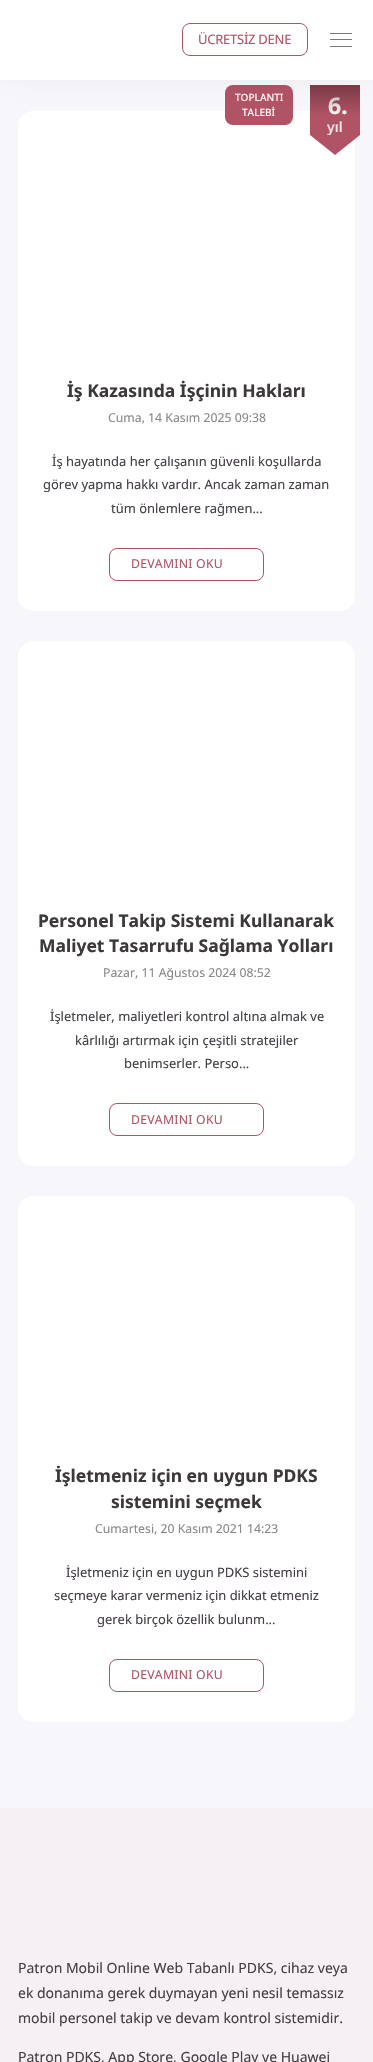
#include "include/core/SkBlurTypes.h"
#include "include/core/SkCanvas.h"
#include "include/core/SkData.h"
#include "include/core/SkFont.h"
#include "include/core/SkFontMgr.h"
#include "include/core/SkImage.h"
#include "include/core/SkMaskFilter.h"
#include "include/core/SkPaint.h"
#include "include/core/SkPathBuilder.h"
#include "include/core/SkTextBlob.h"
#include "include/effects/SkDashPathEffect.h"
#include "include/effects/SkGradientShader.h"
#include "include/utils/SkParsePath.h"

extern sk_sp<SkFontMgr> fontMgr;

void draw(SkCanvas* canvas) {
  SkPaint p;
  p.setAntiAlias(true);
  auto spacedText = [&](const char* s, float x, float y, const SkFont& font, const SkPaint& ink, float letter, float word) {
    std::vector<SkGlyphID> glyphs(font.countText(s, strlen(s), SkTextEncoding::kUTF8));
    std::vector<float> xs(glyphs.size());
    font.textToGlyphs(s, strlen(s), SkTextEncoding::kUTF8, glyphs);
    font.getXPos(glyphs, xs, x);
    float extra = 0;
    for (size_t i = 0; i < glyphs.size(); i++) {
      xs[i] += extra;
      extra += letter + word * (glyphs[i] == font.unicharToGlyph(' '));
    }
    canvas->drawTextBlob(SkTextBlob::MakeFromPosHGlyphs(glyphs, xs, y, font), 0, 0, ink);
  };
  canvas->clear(SkColorSetRGB(247, 247, 251));
  p.setColor(SK_ColorWHITE);
  canvas->drawRoundRect(SkRect::MakeLTRB(18, 111, 355, 611), 15, 15, p);
  p.setColor(SkColorSetRGB(176, 83, 100));
  canvas->drawRoundRect(SkRect::MakeLTRB(225, 85, 293, 125), 8, 8, p);
  canvas->drawRect(SkRect::MakeLTRB(310, 85, 360, 135), p);
  p.setStyle(SkPaint::kStroke_Style);
  p.setStrokeWidth(1);
  canvas->drawRoundRect(SkRect::MakeLTRB(109.5f, 548.5f, 263.5f, 580.5f), 7.5f, 7.5f, p);
  p.setStyle(SkPaint::kFill_Style);
  p.setColor(SK_ColorWHITE);
  canvas->drawRoundRect(SkRect::MakeLTRB(18, 641, 355, 1166), 15, 15, p);
  p.setStyle(SkPaint::kStroke_Style);
  p.setColor(SkColorSetRGB(176, 83, 100));
  canvas->drawRoundRect(SkRect::MakeLTRB(109.5f, 1103.5f, 263.5f, 1135.5f), 7.5f, 7.5f, p);
  p.setStyle(SkPaint::kFill_Style);
  p.setColor(SK_ColorWHITE);
  canvas->drawRoundRect(SkRect::MakeLTRB(18, 1196, 355, 1722), 15, 15, p);
  p.setStyle(SkPaint::kStroke_Style);
  p.setColor(SkColorSetRGB(176, 83, 100));
  canvas->drawRoundRect(SkRect::MakeLTRB(109.5f, 1659.5f, 263.5f, 1691.5f), 7.5f, 7.5f, p);
  p.setStyle(SkPaint::kFill_Style);
  {
    const SkColor colors[] = {SkColorSetRGB(247, 243, 247), SkColorSetRGB(246, 239, 244)};
    const float stops[] = {0, 1};
    const SkPoint ends[] = {{187, 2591}, {187, 1808}};
    p.setShader(SkGradientShader::MakeLinear(ends, colors, stops, 2, SkTileMode::kClamp));
    p.setAlpha(255);
  }
  canvas->drawRect(SkRect::MakeLTRB(0, 1808, 373, 2062), p);
  SkFont font1(fontMgr->matchFamilyStyle("Noto Sans", SkFontStyle(500, SkFontStyle::kNormal_Width, SkFontStyle::kUpright_Slant)), 10);
  font1.setSubpixel(true);
  p.setShader(nullptr);
  p.setColor(SkColorSetRGB(250, 243, 245));
  canvas->drawString("TOPLANTI", 235, 101, font1, p);
  canvas->drawString("TALEBİ", 242, 116, font1, p);
  SkFont font2(fontMgr->matchFamilyStyle("Noto Sans", SkFontStyle::Bold()), 23);
  font2.setSubpixel(true);
  canvas->drawString("6", 328, 114, font2, p);
  SkFont font3(fontMgr->matchFamilyStyle("Noto Sans", SkFontStyle::Bold()), 24);
  font3.setSubpixel(true);
  canvas->drawString(".", 341, 114, font3, p);
  {
    const SkColor colors[] = {SkColorSetARGB(77, 0, 0, 0), SkColorSetARGB(0, 0, 0, 0)};
    const float stops[] = {0, 1};
    const SkPoint ends[] = {{335, 85}, {335, 115}};
    p.setShader(SkGradientShader::MakeLinear(ends, colors, stops, 2, SkTileMode::kClamp));
    p.setAlpha(255);
  }
  canvas->drawRect(SkRect::MakeLTRB(310, 85, 360, 113), p);
  p.setShader(nullptr);
  p.setColor(SkColorSetARGB(33, 0, 0, 0));
  p.setMaskFilter(SkMaskFilter::MakeBlur(kNormal_SkBlurStyle, 12.5f));
  canvas->drawRect(SkRect::MakeLTRB(10, 10, 363, 70), p);
  p.setMaskFilter(nullptr);
  p.setColor(SK_ColorWHITE);
  canvas->drawRect(SkRect::MakeLTRB(0, 0, 373, 80), p);
  p.setColor(SkColorSetRGB(121, 121, 121));
  canvas->drawRect(SkRect::MakeLTRB(330, 46, 352, 47), p);
  canvas->drawRect(SkRect::MakeLTRB(330, 39, 352, 40), p);
  canvas->drawRect(SkRect::MakeLTRB(330, 33, 352, 34), p);
  p.setStyle(SkPaint::kStroke_Style);
  p.setColor(SkColorSetRGB(176, 83, 100));
  canvas->drawRoundRect(SkRect::MakeLTRB(182.5f, 23.5f, 307.5f, 55.5f), 7.5f, 7.5f, p);
  SkFont font4(fontMgr->matchFamilyStyle("Noto Sans", SkFontStyle::Normal()), 13);
  font4.setSubpixel(true);
  p.setStyle(SkPaint::kFill_Style);
  spacedText("ÜCRETSİZ DENE", 198, 44, font4, p, -0.25f, 0);
  SkFont font5(fontMgr->matchFamilyStyle("Noto Sans", SkFontStyle(600, SkFontStyle::kNormal_Width, SkFontStyle::kUpright_Slant)), 14);
  font5.setSubpixel(true);
  p.setColor(SkColorSetRGB(240, 221, 225));
  canvas->drawString("yıl", 327, 132, font5, p);
  p.setColor(SkColorSetRGB(176, 83, 100));
  canvas->drawPath(SkPathBuilder().moveTo(310, 135).lineTo(360, 135).lineTo(335, 155).close().detach(), p);
  SkFont font6(fontMgr->matchFamilyStyle("Noto Sans", SkFontStyle::Bold()), 17.5f);
  font6.setSubpixel(true);
  p.setColor(SkColorSetRGB(61, 57, 58));
  canvas->drawString("İş Kazasında İşçinin Hakları", 67, 397, font6, p);
  SkFont font7(fontMgr->matchFamilyStyle("Noto Sans", SkFontStyle::Normal()), 12.25f);
  font7.setSubpixel(true);
  p.setColor(SkColorSetRGB(136, 136, 136));
  canvas->drawString("Cuma, 14 Kasım 2025 09:38", 108, 422, font7, p);
  SkFont font8(fontMgr->matchFamilyStyle("Noto Sans", SkFontStyle::Normal()), 12.95f);
  font8.setSubpixel(true);
  p.setColor(SkColorSetRGB(68, 63, 70));
  canvas->drawString("İş hayatında her çalışanın güvenli koşullarda", 52, 466, font8, p);
  canvas->drawString("görev yapma hakkı vardır. Ancak zaman zaman", 43, 489, font8, p);
  canvas->drawString("tüm önlemlere rağmen...", 111, 513, font8, p);
  p.setColor(SkColorSetRGB(176, 83, 100));
  spacedText("DEVAMINI OKU", 131, 568, font7, p, 0.25f, 0);
  p.setColor(SkColorSetRGB(61, 57, 58));
  canvas->drawString("Personel Takip Sistemi Kullanarak", 38, 927, font6, p);
  canvas->drawString("Maliyet Tasarrufu Sağlama Yolları", 39, 952, font6, p);
  p.setColor(SkColorSetRGB(136, 136, 136));
  canvas->drawString("Pazar, 11 Ağustos 2024 08:52", 103, 977, font7, p);
  p.setColor(SkColorSetRGB(68, 63, 70));
  canvas->drawString("İşletmeler, maliyetleri kontrol altına almak ve", 50, 1021, font8, p);
  canvas->drawString("kârlılığı artırmak için çeşitli stratejiler", 75, 1045, font8, p);
  canvas->drawString("benimserler. Perso...", 124, 1068, font8, p);
  p.setColor(SkColorSetRGB(176, 83, 100));
  spacedText("DEVAMINI OKU", 131, 1124, font7, p, 0.25f, 0);
  p.setColor(SkColorSetRGB(61, 57, 58));
  canvas->drawString("İşletmeniz için en uygun PDKS", 55, 1482, font6, p);
  canvas->drawString("sistemini seçmek", 111, 1508, font6, p);
  p.setColor(SkColorSetRGB(136, 136, 136));
  canvas->drawString("Cumartesi, 20 Kasım 2021 14:23", 95, 1533, font7, p);
  p.setColor(SkColorSetRGB(68, 63, 70));
  canvas->drawString("İşletmeniz için en uygun PDKS sistemini", 66, 1577, font8, p);
  canvas->drawString("seçmeye karar vermeniz için dikkat etmeniz", 54, 1600, font8, p);
  canvas->drawString("gerek birçok özellik bulunm...", 97, 1624, font8, p);
  p.setColor(SkColorSetRGB(176, 83, 100));
  spacedText("DEVAMINI OKU", 131, 1679, font7, p, 0.25f, 0);
  SkFont font9(fontMgr->matchFamilyStyle("Noto Sans", SkFontStyle::Normal()), 14);
  font9.setSubpixel(true);
  p.setColor(SkColorSetRGB(68, 63, 70));
  canvas->drawString("Patron Mobil Online Web Tabanlı PDKS, cihaz veya", 18, 1973, font9, p);
  canvas->drawString("ek donanıma gerek duymayan yeni nesil temassız", 18, 1998, font9, p);
  canvas->drawString("mobil personel takip ve devam kontrol sistemidir.", 18, 2023, font9, p);
  canvas->drawString("Patron PDKS, App Store, Google Play ve Huawei", 18, 2062, font9, p);
}
